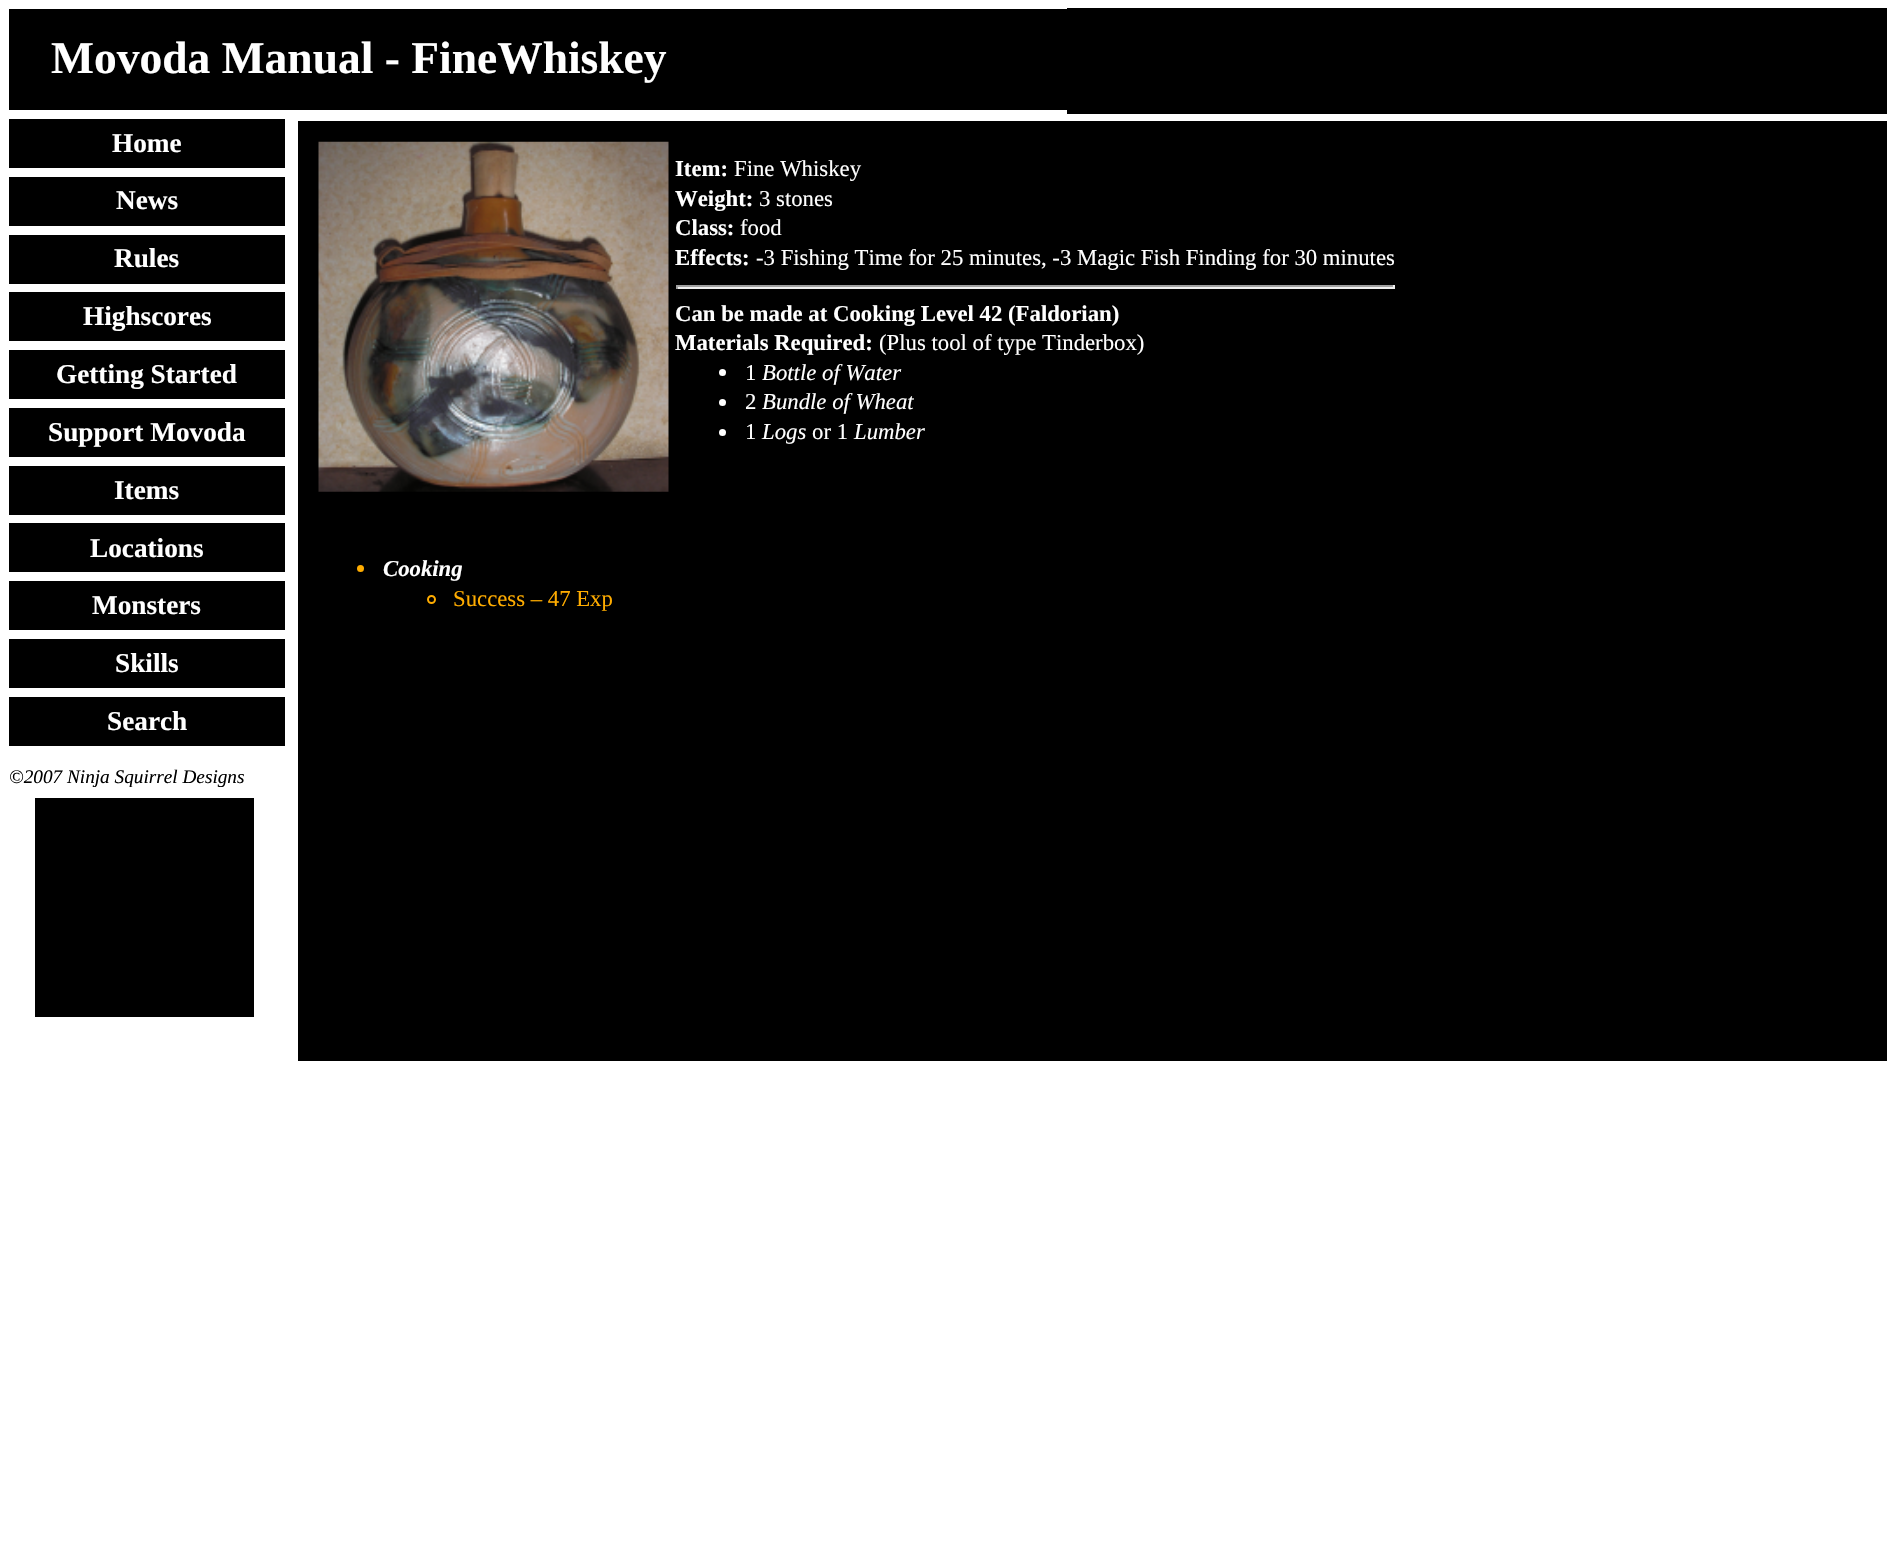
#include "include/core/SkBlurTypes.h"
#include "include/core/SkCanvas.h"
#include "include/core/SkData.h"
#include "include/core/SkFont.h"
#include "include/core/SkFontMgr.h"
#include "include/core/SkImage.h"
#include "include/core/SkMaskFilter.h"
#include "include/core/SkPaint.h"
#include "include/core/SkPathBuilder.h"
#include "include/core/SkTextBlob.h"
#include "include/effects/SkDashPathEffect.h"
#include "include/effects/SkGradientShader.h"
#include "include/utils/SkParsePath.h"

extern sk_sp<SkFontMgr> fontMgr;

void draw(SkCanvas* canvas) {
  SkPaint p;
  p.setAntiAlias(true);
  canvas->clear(SK_ColorWHITE);
  p.setColor(SK_ColorBLACK);
  canvas->drawRect(SkRect::MakeLTRB(9, 9, 1067, 110), p);
  canvas->drawRect(SkRect::MakeLTRB(1067, 8, 1887, 114), p);
  canvas->drawRect(SkRect::MakeLTRB(9, 119, 285, 168), p);
  canvas->drawRect(SkRect::MakeLTRB(9, 177, 285, 226), p);
  canvas->drawRect(SkRect::MakeLTRB(298, 121, 1887, 1061), p);
  canvas->drawImageRect(SkImages::DeferredFromEncodedData(SkData::MakeFromFileName("images/1.png")), SkRect::MakeLTRB(318, 141, 669, 492), SkSamplingOptions());
  p.setColor(SkColorSetRGB(159, 159, 159));
  canvas->drawRect(SkRect::MakeLTRB(676, 285, 1395, 287), p);
  p.setColor(SkColorSetRGB(238, 238, 238));
  canvas->drawRect(SkRect::MakeLTRB(1393, 285, 1395, 289), p);
  canvas->drawRect(SkRect::MakeLTRB(676, 287, 1395, 289), p);
  p.setColor(SkColorSetRGB(159, 159, 159));
  canvas->drawRect(SkRect::MakeLTRB(676, 285, 678, 289), p);
  p.setColor(SK_ColorWHITE);
  canvas->drawCircle(722.5f, 372.5f, 3.5f, p);
  canvas->drawCircle(722.5f, 402.5f, 3.5f, p);
  canvas->drawCircle(722.5f, 432.5f, 3.5f, p);
  p.setColor(SkColorSetRGB(255, 172, 0));
  canvas->drawCircle(360.5f, 568.5f, 3.5f, p);
  p.setStyle(SkPaint::kStroke_Style);
  p.setStrokeWidth(2);
  canvas->drawCircle(431.5f, 599.5f, 3.5f, p);
  p.setStyle(SkPaint::kFill_Style);
  p.setColor(SK_ColorBLACK);
  canvas->drawRect(SkRect::MakeLTRB(9, 235, 285, 284), p);
  canvas->drawRect(SkRect::MakeLTRB(9, 292, 285, 341), p);
  canvas->drawRect(SkRect::MakeLTRB(9, 350, 285, 399), p);
  canvas->drawRect(SkRect::MakeLTRB(9, 408, 285, 457), p);
  canvas->drawRect(SkRect::MakeLTRB(9, 466, 285, 515), p);
  canvas->drawRect(SkRect::MakeLTRB(9, 523, 285, 572), p);
  canvas->drawRect(SkRect::MakeLTRB(9, 581, 285, 630), p);
  canvas->drawRect(SkRect::MakeLTRB(9, 639, 285, 688), p);
  canvas->drawRect(SkRect::MakeLTRB(9, 697, 285, 746), p);
  canvas->drawRect(SkRect::MakeLTRB(35, 798, 254, 1017), p);
  SkFont font1(fontMgr->matchFamilyStyle("Liberation Serif", SkFontStyle::Bold()), 45.5f);
  font1.setSubpixel(true);
  p.setColor(SK_ColorWHITE);
  canvas->drawString("Movoda Manual - FineWhiskey", 51, 73, font1, p);
  SkFont font2(fontMgr->matchFamilyStyle("Liberation Serif", SkFontStyle::Bold()), 27.25f);
  font2.setSubpixel(true);
  canvas->drawString("Home", 112, 152, font2, p);
  canvas->drawString("News", 116, 209, font2, p);
  SkFont font3(fontMgr->matchFamilyStyle("Liberation Serif", SkFontStyle::Bold()), 22.75f);
  font3.setSubpixel(true);
  canvas->drawString("Item:", 675, 176, font3, p);
  SkFont font4(fontMgr->matchFamilyStyle("Liberation Serif", SkFontStyle::Normal()), 22.75f);
  font4.setSubpixel(true);
  canvas->drawString("Fine Whiskey", 734, 176, font4, p);
  canvas->drawString("Weight:", 675, 206, font3, p);
  canvas->drawString("3 stones", 759, 206, font4, p);
  canvas->drawString("Class:", 675, 235, font3, p);
  canvas->drawString("food", 740, 235, font4, p);
  canvas->drawString("Effects:", 675, 265, font3, p);
  canvas->drawString("-3 Fishing Time for 25 minutes, -3 Magic Fish Finding for 30 minutes", 756, 265, font4, p);
  canvas->drawString("Can be made at Cooking Level 42 (Faldorian)", 675, 321, font3, p);
  canvas->drawString("Materials Required:", 675, 350, font3, p);
  canvas->drawString("(Plus tool of type Tinderbox)", 879, 350, font4, p);
  canvas->drawString("1", 745, 380, font4, p);
  SkFont font5(fontMgr->matchFamilyStyle("Liberation Serif", SkFontStyle::Italic()), 22.75f);
  font5.setSubpixel(true);
  canvas->drawString("Bottle of Water", 762, 380, font5, p);
  canvas->drawString("2", 745, 409, font4, p);
  canvas->drawString("Bundle of Wheat", 762, 409, font5, p);
  canvas->drawString("1", 745, 439, font4, p);
  canvas->drawString("Logs", 762, 439, font5, p);
  canvas->drawString("or 1", 812, 439, font4, p);
  canvas->drawString("Lumber", 854, 439, font5, p);
  SkFont font6(fontMgr->matchFamilyStyle("Liberation Serif", SkFontStyle::BoldItalic()), 22.75f);
  font6.setSubpixel(true);
  canvas->drawString("Cooking", 383, 576, font6, p);
  p.setColor(SkColorSetRGB(255, 172, 0));
  canvas->drawString("Success – 47 Exp", 453, 606, font4, p);
  p.setColor(SK_ColorWHITE);
  canvas->drawString("Rules", 114, 267, font2, p);
  canvas->drawString("Highscores", 83, 325, font2, p);
  canvas->drawString("Getting Started", 56, 383, font2, p);
  canvas->drawString("Support Movoda", 48, 441, font2, p);
  canvas->drawString("Items", 114, 499, font2, p);
  canvas->drawString("Locations", 90, 557, font2, p);
  canvas->drawString("Monsters", 92, 614, font2, p);
  canvas->drawString("Skills", 115, 672, font2, p);
  canvas->drawString("Search", 107, 730, font2, p);
  SkFont font7(fontMgr->matchFamilyStyle("Liberation Serif", SkFontStyle::Italic()), 19.25f);
  font7.setSubpixel(true);
  p.setColor(SK_ColorBLACK);
  canvas->drawString("©2007 Ninja Squirrel Designs", 9, 783, font7, p);
}
